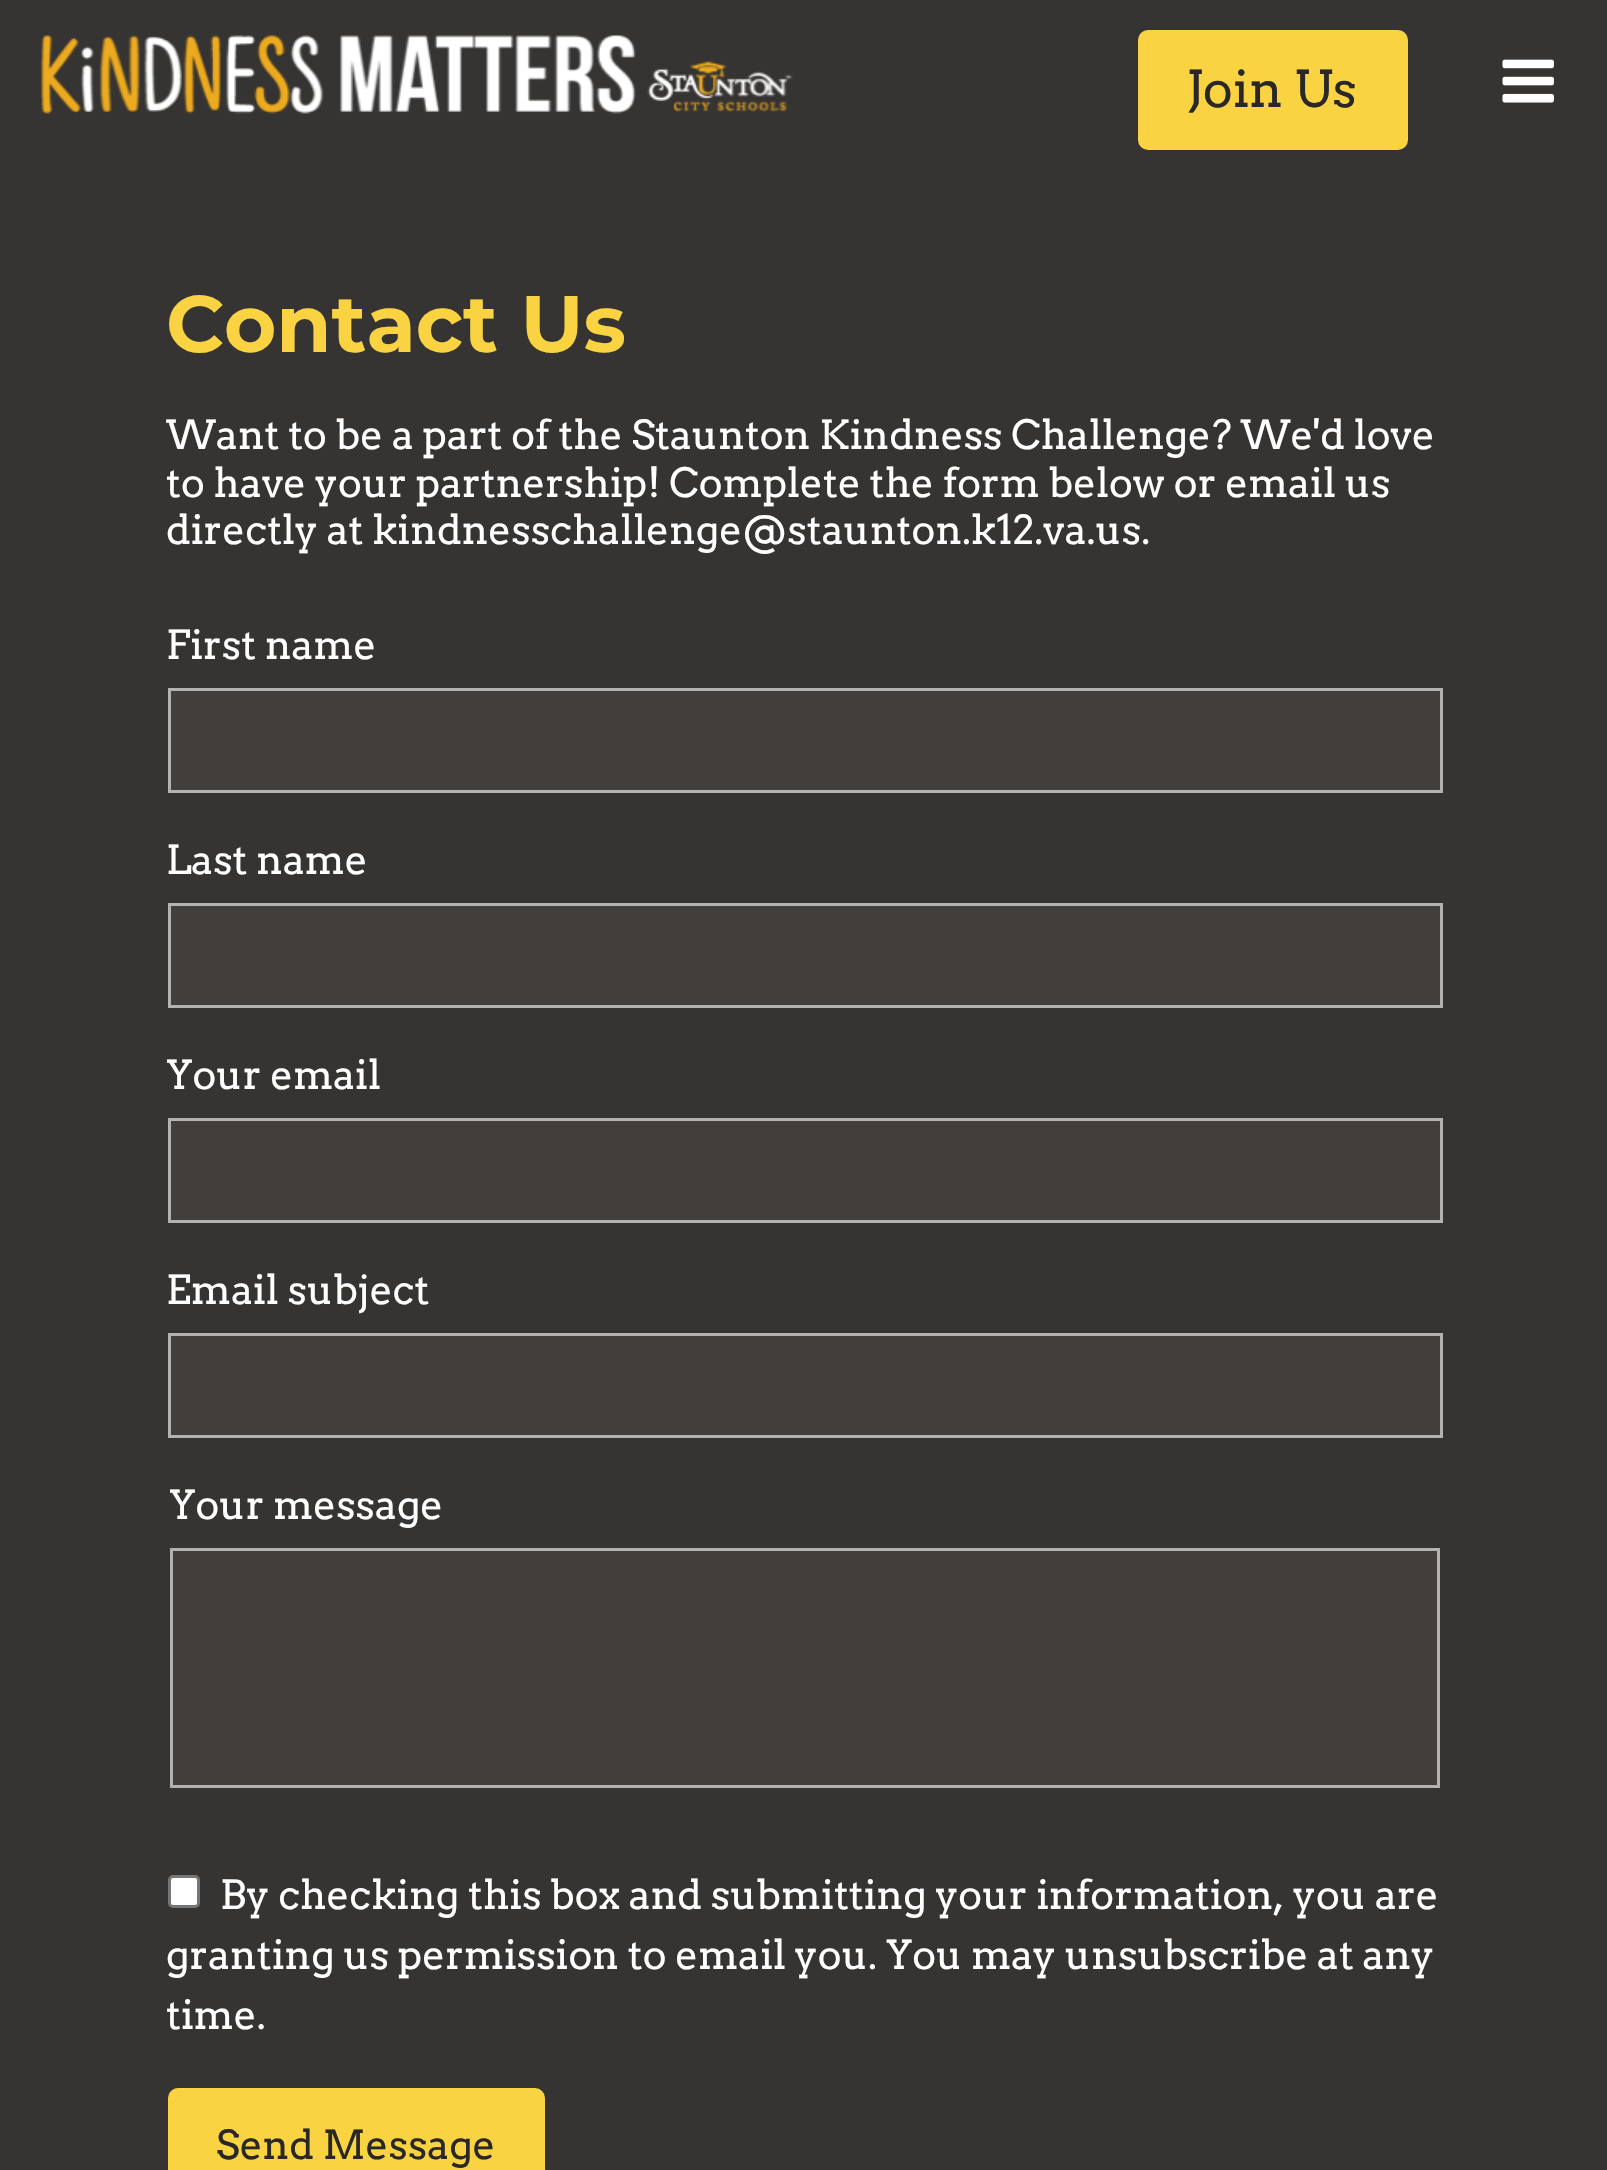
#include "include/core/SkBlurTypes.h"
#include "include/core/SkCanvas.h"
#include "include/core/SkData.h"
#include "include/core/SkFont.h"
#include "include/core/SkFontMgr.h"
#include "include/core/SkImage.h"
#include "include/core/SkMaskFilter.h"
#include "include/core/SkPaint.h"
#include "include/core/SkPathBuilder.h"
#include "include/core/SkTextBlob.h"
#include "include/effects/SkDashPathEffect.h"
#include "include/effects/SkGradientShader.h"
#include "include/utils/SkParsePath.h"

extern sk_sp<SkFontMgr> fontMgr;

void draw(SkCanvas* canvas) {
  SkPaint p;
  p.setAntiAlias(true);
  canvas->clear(SkColorSetRGB(54, 52, 50));
  canvas->drawImageRect(SkImages::DeferredFromEncodedData(SkData::MakeFromFileName("images/1.png")), SkRect::MakeLTRB(40, 34, 793, 114), SkSamplingOptions());
  p.setColor(SkColorSetRGB(249, 211, 66));
  canvas->drawRoundRect(SkRect::MakeLTRB(1138, 30, 1408, 150), 10, 10, p);
  canvas->drawImageRect(SkImages::DeferredFromEncodedData(SkData::MakeFromFileName("images/2.png")), SkRect::MakeLTRB(1502, 59, 1554, 103), SkSamplingOptions());
  p.setColor(SkColorSetRGB(65, 62, 60));
  canvas->drawRect(SkRect::MakeLTRB(169.5f, 689.5f, 1441.5f, 791.5f), p);
  p.setStyle(SkPaint::kStroke_Style);
  p.setStrokeWidth(3);
  p.setColor(SkColorSetRGB(179, 178, 177));
  canvas->drawRect(SkRect::MakeLTRB(169.5f, 689.5f, 1441.5f, 791.5f), p);
  p.setStyle(SkPaint::kFill_Style);
  p.setColor(SkColorSetRGB(65, 62, 60));
  canvas->drawRect(SkRect::MakeLTRB(169.5f, 904.5f, 1441.5f, 1006.5f), p);
  p.setStyle(SkPaint::kStroke_Style);
  p.setColor(SkColorSetRGB(179, 178, 177));
  canvas->drawRect(SkRect::MakeLTRB(169.5f, 904.5f, 1441.5f, 1006.5f), p);
  p.setStyle(SkPaint::kFill_Style);
  p.setColor(SkColorSetRGB(65, 62, 60));
  canvas->drawRect(SkRect::MakeLTRB(169.5f, 1119.5f, 1441.5f, 1221.5f), p);
  p.setStyle(SkPaint::kStroke_Style);
  p.setColor(SkColorSetRGB(179, 178, 177));
  canvas->drawRect(SkRect::MakeLTRB(169.5f, 1119.5f, 1441.5f, 1221.5f), p);
  p.setStyle(SkPaint::kFill_Style);
  p.setColor(SkColorSetRGB(65, 62, 60));
  canvas->drawRect(SkRect::MakeLTRB(169.5f, 1334.5f, 1441.5f, 1436.5f), p);
  p.setStyle(SkPaint::kStroke_Style);
  p.setColor(SkColorSetRGB(179, 178, 177));
  canvas->drawRect(SkRect::MakeLTRB(169.5f, 1334.5f, 1441.5f, 1436.5f), p);
  p.setStyle(SkPaint::kFill_Style);
  p.setColor(SkColorSetRGB(65, 62, 60));
  canvas->drawRect(SkRect::MakeLTRB(171.5f, 1549.5f, 1438.5f, 1786.5f), p);
  p.setStyle(SkPaint::kStroke_Style);
  p.setColor(SkColorSetRGB(179, 178, 177));
  canvas->drawRect(SkRect::MakeLTRB(171.5f, 1549.5f, 1438.5f, 1786.5f), p);
  p.setStyle(SkPaint::kFill_Style);
  p.setColor(SK_ColorWHITE);
  canvas->drawRoundRect(SkRect::MakeLTRB(169.5f, 1876.5f, 198.5f, 1906.5f), 3.5f, 3.5f, p);
  p.setStyle(SkPaint::kStroke_Style);
  p.setColor(SkColorSetRGB(118, 118, 118));
  canvas->drawRoundRect(SkRect::MakeLTRB(169.5f, 1876.5f, 198.5f, 1906.5f), 3.5f, 3.5f, p);
  p.setStyle(SkPaint::kFill_Style);
  p.setColor(SkColorSetRGB(249, 211, 66));
  canvas->drawRoundRect(SkRect::MakeLTRB(168, 2088, 545, 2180), 10, 10, p);
  SkFont font1(fontMgr->matchFamilyStyle("Arvo", SkFontStyle::Normal()), 50.5f);
  font1.setSubpixel(true);
  p.setColor(SkColorSetRGB(41, 40, 38));
  canvas->drawString("Join Us", 1186, 107, font1, p);
  SkFont font2(fontMgr->matchFamilyStyle("Montserrat", SkFontStyle::Bold()), 80);
  font2.setSubpixel(true);
  p.setColor(SkColorSetRGB(249, 211, 66));
  canvas->drawString("Contact Us", 166, 352, font2, p);
  SkFont font3(fontMgr->matchFamilyStyle("Arvo", SkFontStyle::Normal()), 40);
  font3.setSubpixel(true);
  p.setColor(SK_ColorWHITE);
  canvas->drawString("Want to be a part of the Staunton Kindness Challenge? We'd love", 166, 449, font3, p);
  canvas->drawString("to have your partnership! Complete the form below or email us", 166, 497, font3, p);
  canvas->drawString("directly at kindnesschallenge@staunton.k12.va.us.", 166, 544, font3, p);
  canvas->drawString("First name", 166, 659, font3, p);
  canvas->drawString("Last name", 166, 874, font3, p);
  canvas->drawString("Your email", 166, 1089, font3, p);
  canvas->drawString("Email subject", 166, 1304, font3, p);
  canvas->drawString("Your message", 169, 1519, font3, p);
  canvas->drawString("By checking this box and submitting your information, you are", 220, 1909, font3, p);
  canvas->drawString("granting us permission to email you. You may unsubscribe at any", 166, 1969, font3, p);
  canvas->drawString("time.", 166, 2029, font3, p);
  p.setColor(SkColorSetRGB(41, 40, 38));
  canvas->drawString("Send Message", 216, 2159, font3, p);
}
